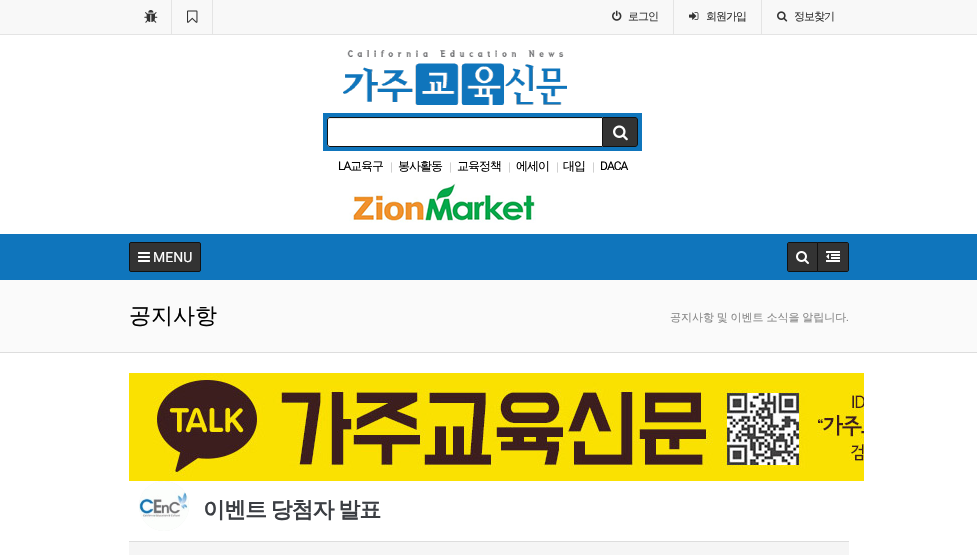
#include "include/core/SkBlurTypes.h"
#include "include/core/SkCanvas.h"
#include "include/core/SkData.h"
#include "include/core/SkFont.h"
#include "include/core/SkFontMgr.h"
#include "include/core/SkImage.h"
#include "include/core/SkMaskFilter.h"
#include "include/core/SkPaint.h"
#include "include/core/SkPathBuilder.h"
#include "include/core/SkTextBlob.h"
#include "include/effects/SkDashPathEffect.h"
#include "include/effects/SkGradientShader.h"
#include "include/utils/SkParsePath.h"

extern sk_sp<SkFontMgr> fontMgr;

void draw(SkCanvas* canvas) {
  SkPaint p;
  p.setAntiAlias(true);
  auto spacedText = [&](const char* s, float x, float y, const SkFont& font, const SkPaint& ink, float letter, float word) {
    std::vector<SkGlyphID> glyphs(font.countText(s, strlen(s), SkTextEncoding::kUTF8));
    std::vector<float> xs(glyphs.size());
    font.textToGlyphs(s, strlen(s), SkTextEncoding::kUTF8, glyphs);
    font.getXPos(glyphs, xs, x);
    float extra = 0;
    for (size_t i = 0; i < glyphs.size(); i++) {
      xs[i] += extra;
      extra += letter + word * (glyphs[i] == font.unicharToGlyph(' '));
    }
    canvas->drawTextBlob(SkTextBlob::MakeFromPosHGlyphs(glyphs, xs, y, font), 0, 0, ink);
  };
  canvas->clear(SK_ColorWHITE);
  p.setColor(SkColorSetRGB(248, 248, 248));
  canvas->drawRect(SkRect::MakeLTRB(0, 0, 977, 34), p);
  p.setColor(SkColorSetRGB(228, 228, 228));
  canvas->drawRect(SkRect::MakeLTRB(0, 34, 977, 35), p);
  canvas->drawRect(SkRect::MakeLTRB(171, 0, 172, 34), p);
  canvas->drawImageRect(SkImages::DeferredFromEncodedData(SkData::MakeFromFileName("images/1.png")), SkRect::MakeLTRB(144, 10, 158, 23), SkSamplingOptions());
  canvas->drawRect(SkRect::MakeLTRB(212, 0, 213, 34), p);
  canvas->drawImageRect(SkImages::DeferredFromEncodedData(SkData::MakeFromFileName("images/2.png")), SkRect::MakeLTRB(187, 10, 198, 23), SkSamplingOptions());
  canvas->drawRect(SkRect::MakeLTRB(673, 0, 674, 34), p);
  canvas->drawImageRect(SkImages::DeferredFromEncodedData(SkData::MakeFromFileName("images/3.png")), SkRect::MakeLTRB(612, 10, 622, 21), SkSamplingOptions());
  canvas->drawRect(SkRect::MakeLTRB(761, 0, 762, 34), p);
  canvas->drawImageRect(SkImages::DeferredFromEncodedData(SkData::MakeFromFileName("images/4.png")), SkRect::MakeLTRB(689, 12, 699, 20), SkSamplingOptions());
  canvas->drawImageRect(SkImages::DeferredFromEncodedData(SkData::MakeFromFileName("images/5.png")), SkRect::MakeLTRB(777, 11, 788, 22), SkSamplingOptions());
  canvas->drawImageRect(SkImages::DeferredFromEncodedData(SkData::MakeFromFileName("images/6.png")), SkRect::MakeLTRB(343, 50, 567, 105), SkSamplingOptions());
  p.setColor(SkColorSetRGB(15, 117, 188));
  canvas->drawRect(SkRect::MakeLTRB(323, 113, 642, 151), p);
  p.setColor(SkColorSetRGB(51, 51, 51));
  canvas->drawPath(SkPathBuilder().moveTo(602.5f, 117.5f).lineTo(635, 117.5f).cubicTo(636.5f, 117.5f, 637.5f, 118.5f, 637.5f, 120).lineTo(637.5f, 144).cubicTo(637.5f, 145.5f, 636.5f, 146.5f, 635, 146.5f).lineTo(602.5f, 146.5f).close().detach(), p);
  p.setStyle(SkPaint::kStroke_Style);
  p.setStrokeWidth(1);
  p.setColor(SkColorSetRGB(17, 17, 17));
  canvas->drawPath(SkPathBuilder().moveTo(602.5f, 117.5f).lineTo(635, 117.5f).cubicTo(636.5f, 117.5f, 637.5f, 118.5f, 637.5f, 120).lineTo(637.5f, 144).cubicTo(637.5f, 145.5f, 636.5f, 146.5f, 635, 146.5f).lineTo(602.5f, 146.5f).close().detach(), p);
  p.setStyle(SkPaint::kFill_Style);
  p.setColor(SK_ColorWHITE);
  canvas->drawPath(SkPathBuilder().moveTo(330, 117).lineTo(603, 117).lineTo(603, 147).lineTo(330, 147).cubicTo(328.5f, 147, 327, 145.5f, 327, 144).lineTo(327, 120).cubicTo(327, 118.5f, 328.5f, 117, 330, 117).close().detach(), p);
  p.setColor(SkColorSetRGB(236, 236, 236));
  canvas->drawPath(SkPathBuilder().moveTo(330, 119).lineTo(602, 119).lineTo(602, 118).lineTo(330, 118).cubicTo(328, 118, 328, 120, 328, 121).cubicTo(328, 120, 329, 119, 330, 119).close().detach(), p);
  p.setStyle(SkPaint::kStroke_Style);
  p.setColor(SkColorSetRGB(17, 17, 17));
  canvas->drawPath(SkPathBuilder().moveTo(330, 117.5f).lineTo(602.5f, 117.5f).lineTo(602.5f, 146.5f).lineTo(330, 146.5f).cubicTo(328.5f, 146.5f, 327.5f, 145.5f, 327.5f, 144).lineTo(327.5f, 120).cubicTo(327.5f, 118.5f, 328.5f, 117.5f, 330, 117.5f).close().detach(), p);
  canvas->drawImageRect(SkImages::DeferredFromEncodedData(SkData::MakeFromFileName("images/7.png")), SkRect::MakeLTRB(613, 125, 628, 141), SkSamplingOptions());
  canvas->drawImageRect(SkImages::DeferredFromEncodedData(SkData::MakeFromFileName("images/8.png")), SkRect::MakeLTRB(349, 182, 536, 223), SkSamplingOptions());
  p.setStyle(SkPaint::kFill_Style);
  p.setColor(SkColorSetRGB(15, 117, 188));
  canvas->drawRect(SkRect::MakeLTRB(0, 234, 977, 280), p);
  p.setColor(SkColorSetRGB(51, 51, 51));
  canvas->drawRoundRect(SkRect::MakeLTRB(129.5f, 242.5f, 200.5f, 271.5f), 1.5f, 1.5f, p);
  p.setStyle(SkPaint::kStroke_Style);
  p.setColor(SkColorSetRGB(17, 17, 17));
  canvas->drawRoundRect(SkRect::MakeLTRB(129.5f, 242.5f, 200.5f, 271.5f), 1.5f, 1.5f, p);
  canvas->drawImageRect(SkImages::DeferredFromEncodedData(SkData::MakeFromFileName("images/9.png")), SkRect::MakeLTRB(138, 252, 150, 262), SkSamplingOptions());
  p.setStyle(SkPaint::kFill_Style);
  p.setColor(SkColorSetRGB(51, 51, 51));
  canvas->drawPath(SkPathBuilder().moveTo(789, 242.5f).lineTo(817.5f, 242.5f).lineTo(817.5f, 271.5f).lineTo(789, 271.5f).cubicTo(788, 271.5f, 787.5f, 271, 787.5f, 270).lineTo(787.5f, 244).cubicTo(787.5f, 243, 788, 242.5f, 789, 242.5f).close().detach(), p);
  p.setStyle(SkPaint::kStroke_Style);
  p.setColor(SkColorSetRGB(17, 17, 17));
  canvas->drawPath(SkPathBuilder().moveTo(789, 242.5f).lineTo(817.5f, 242.5f).lineTo(817.5f, 271.5f).lineTo(789, 271.5f).cubicTo(788, 271.5f, 787.5f, 271, 787.5f, 270).lineTo(787.5f, 244).cubicTo(787.5f, 243, 788, 242.5f, 789, 242.5f).close().detach(), p);
  canvas->drawImageRect(SkImages::DeferredFromEncodedData(SkData::MakeFromFileName("images/10.png")), SkRect::MakeLTRB(796, 251, 809, 264), SkSamplingOptions());
  p.setStyle(SkPaint::kFill_Style);
  p.setColor(SkColorSetRGB(51, 51, 51));
  canvas->drawPath(SkPathBuilder().moveTo(817.5f, 242.5f).lineTo(847, 242.5f).cubicTo(848, 242.5f, 848.5f, 243, 848.5f, 244).lineTo(848.5f, 270).cubicTo(848.5f, 271, 848, 271.5f, 847, 271.5f).lineTo(817.5f, 271.5f).close().detach(), p);
  p.setStyle(SkPaint::kStroke_Style);
  p.setColor(SkColorSetRGB(17, 17, 17));
  canvas->drawPath(SkPathBuilder().moveTo(817.5f, 242.5f).lineTo(847, 242.5f).cubicTo(848, 242.5f, 848.5f, 243, 848.5f, 244).lineTo(848.5f, 270).cubicTo(848.5f, 271, 848, 271.5f, 847, 271.5f).lineTo(817.5f, 271.5f).close().detach(), p);
  canvas->drawImageRect(SkImages::DeferredFromEncodedData(SkData::MakeFromFileName("images/11.png")), SkRect::MakeLTRB(826, 251, 840, 262), SkSamplingOptions());
  p.setStyle(SkPaint::kFill_Style);
  p.setColor(SkColorSetRGB(250, 250, 250));
  canvas->drawRect(SkRect::MakeLTRB(0, 280, 977, 352), p);
  p.setColor(SkColorSetRGB(221, 221, 221));
  canvas->drawRect(SkRect::MakeLTRB(0, 352, 977, 353), p);
  canvas->drawImageRect(SkImages::DeferredFromEncodedData(SkData::MakeFromFileName("images/12.png")), SkRect::MakeLTRB(129, 373, 864, 481), SkSamplingOptions());
  p.setColor(SkColorSetRGB(240, 240, 240));
  canvas->drawCircle(164, 506, 25, p);
  canvas->drawImageRect(SkImages::DeferredFromEncodedData(SkData::MakeFromFileName("images/13.png")), SkRect::MakeLTRB(139, 481, 189, 531), SkSamplingOptions());
  p.setColor(SkColorSetRGB(221, 221, 221));
  canvas->drawRect(SkRect::MakeLTRB(129, 541, 849, 542), p);
  p.setColor(SkColorSetRGB(245, 245, 245));
  canvas->drawRect(SkRect::MakeLTRB(129, 542, 849, 555), p);
  SkFont font1(fontMgr->matchFamilyStyle("WenQuanYi Zen Hei", SkFontStyle(500, SkFontStyle::kNormal_Width, SkFontStyle::kUpright_Slant)), 11);
  font1.setSubpixel(true);
  p.setColor(SkColorSetRGB(51, 51, 51));
  spacedText("로그인", 628, 20, font1, p, -1, 0);
  spacedText("회원가입", 706, 20, font1, p, -1, 0);
  spacedText("정보찾기", 794, 20, font1, p, -1, 0);
  SkFont font2(fontMgr->matchFamilyStyle("Roboto", SkFontStyle::Normal()), 12);
  font2.setSubpixel(true);
  p.setColor(SK_ColorBLACK);
  spacedText("LA", 338, 170, font2, p, -1, 0);
  SkFont font3(fontMgr->matchFamilyStyle("WenQuanYi Zen Hei", SkFontStyle(500, SkFontStyle::kNormal_Width, SkFontStyle::kUpright_Slant)), 12);
  font3.setSubpixel(true);
  spacedText("교육구", 350, 170, font3, p, -1, 0);
  p.setColor(SkColorSetRGB(204, 204, 204));
  spacedText("|", 390, 171, font2, p, -1, 0);
  p.setColor(SK_ColorBLACK);
  spacedText("봉사활동", 398, 170, font3, p, -1, 0);
  p.setColor(SkColorSetRGB(204, 204, 204));
  spacedText("|", 449, 171, font2, p, -1, 0);
  p.setColor(SK_ColorBLACK);
  spacedText("교육정책", 457, 170, font3, p, -1, 0);
  p.setColor(SkColorSetRGB(204, 204, 204));
  spacedText("|", 508, 171, font2, p, -1, 0);
  p.setColor(SK_ColorBLACK);
  spacedText("에세이", 516, 170, font3, p, -1, 0);
  p.setColor(SkColorSetRGB(204, 204, 204));
  spacedText("|", 556, 171, font2, p, -1, 0);
  p.setColor(SK_ColorBLACK);
  spacedText("대입", 563, 170, font3, p, -1, 0);
  p.setColor(SkColorSetRGB(204, 204, 204));
  spacedText("|", 592, 171, font2, p, -1, 0);
  p.setColor(SK_ColorBLACK);
  spacedText("DACA", 600, 170, font2, p, -1, 0);
  SkFont font4(fontMgr->matchFamilyStyle("Roboto", SkFontStyle::Normal()), 14);
  font4.setSubpixel(true);
  p.setColor(SK_ColorWHITE);
  canvas->drawString("MENU", 153, 262, font4, p);
  SkFont font5(fontMgr->matchFamilyStyle("WenQuanYi Zen Hei", SkFontStyle(500, SkFontStyle::kNormal_Width, SkFontStyle::kUpright_Slant)), 22);
  font5.setSubpixel(true);
  p.setColor(SK_ColorBLACK);
  canvas->drawString("공지사항", 129, 323, font5, p);
  p.setColor(SkColorSetRGB(136, 136, 136));
  spacedText("공지사항 및 이벤트 소식을 알립니다", 670, 321, font1, p, 0, -0.5f);
  SkFont font6(fontMgr->matchFamilyStyle("Roboto", SkFontStyle::Normal()), 11);
  font6.setSubpixel(true);
  canvas->drawString(".", 846, 321, font6, p);
  SkFont font7(fontMgr->matchFamilyStyle("WenQuanYi Zen Hei", SkFontStyle::Bold()), 22);
  font7.setSubpixel(true);
  p.setColor(SkColorSetRGB(59, 62, 67));
  spacedText("이벤트 당첨자 발표", 203, 517, font7, p, -1, -1);
}
